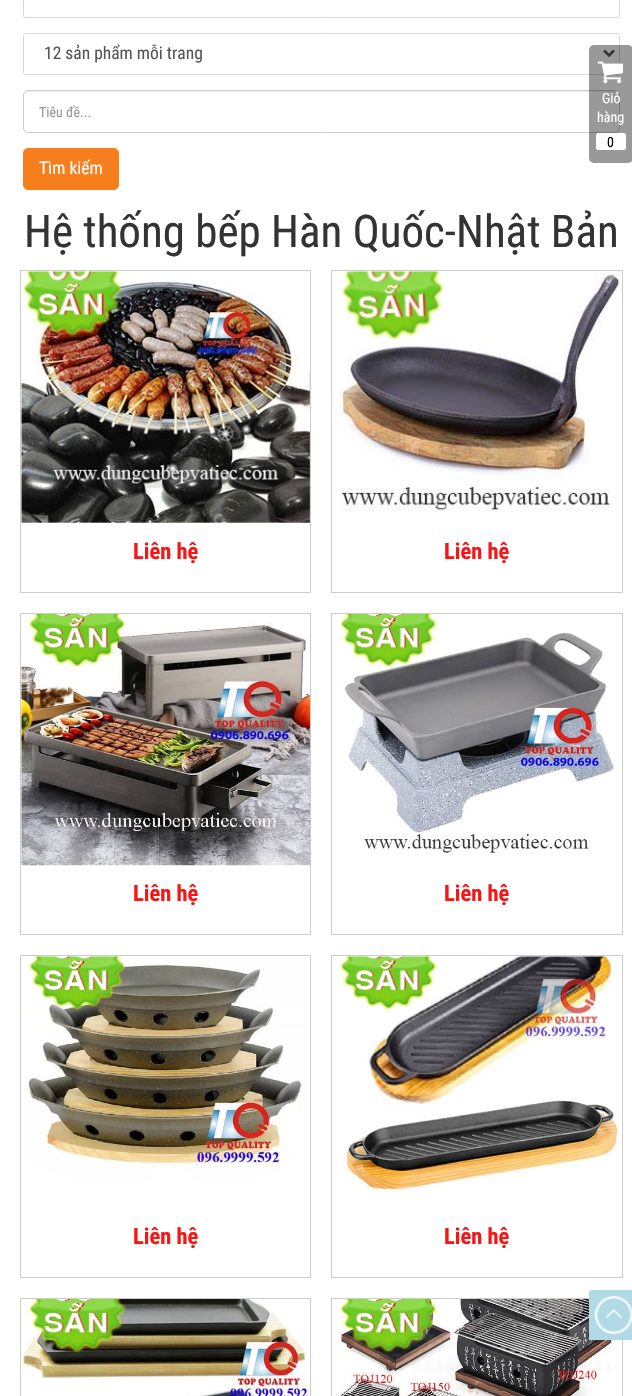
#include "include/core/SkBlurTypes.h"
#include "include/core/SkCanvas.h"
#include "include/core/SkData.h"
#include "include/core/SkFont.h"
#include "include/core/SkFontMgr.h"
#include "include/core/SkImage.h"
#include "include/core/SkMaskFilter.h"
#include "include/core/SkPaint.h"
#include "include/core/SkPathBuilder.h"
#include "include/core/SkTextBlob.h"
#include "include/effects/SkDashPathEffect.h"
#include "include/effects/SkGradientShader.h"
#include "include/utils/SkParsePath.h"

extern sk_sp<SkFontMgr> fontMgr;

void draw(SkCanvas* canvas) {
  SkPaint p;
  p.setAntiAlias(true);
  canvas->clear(SK_ColorWHITE);
  p.setStyle(SkPaint::kStroke_Style);
  p.setStrokeWidth(1);
  p.setColor(SkColorSetRGB(215, 215, 215));
  canvas->drawRoundRect(SkRect::MakeLTRB(23.5f, -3.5f, 619.5f, 17.5f), 2, 2, p);
  canvas->drawRoundRect(SkRect::MakeLTRB(23.5f, 33.5f, 619.5f, 74.5f), 2, 2, p);
  p.setStrokeWidth(2.5f);
  p.setColor(SkColorSetRGB(85, 85, 85));
  canvas->drawPath(SkPathBuilder().moveTo(604, 50.5f).lineTo(609, 55.5f).lineTo(614, 50.5f).detach(), p);
  p.setStyle(SkPaint::kFill_Style);
  p.setColor(SkColorSetRGB(236, 236, 236));
  canvas->drawPath(SkPathBuilder().moveTo(28, 92).lineTo(615, 92).cubicTo(617, 92, 619, 94, 619, 96).lineTo(619, 95).cubicTo(619, 93, 617, 91, 615, 91).lineTo(28, 91).cubicTo(26, 91, 24, 93, 24, 95).lineTo(24, 96).cubicTo(24, 94, 25, 92, 28, 92).close().detach(), p);
  p.setStyle(SkPaint::kStroke_Style);
  p.setStrokeWidth(1);
  p.setColor(SkColorSetRGB(204, 204, 204));
  canvas->drawRoundRect(SkRect::MakeLTRB(23.5f, 90.5f, 619.5f, 132.5f), 4.5f, 4.5f, p);
  p.setStyle(SkPaint::kFill_Style);
  p.setColor(SkColorSetRGB(246, 126, 28));
  canvas->drawRoundRect(SkRect::MakeLTRB(23.5f, 148.5f, 118.5f, 189.5f), 4.5f, 4.5f, p);
  p.setStyle(SkPaint::kStroke_Style);
  canvas->drawRoundRect(SkRect::MakeLTRB(23.5f, 148.5f, 118.5f, 189.5f), 4.5f, 4.5f, p);
  p.setColor(SkColorSetRGB(204, 204, 204));
  canvas->drawRect(SkRect::MakeLTRB(20.5f, 270.5f, 310.5f, 592.5f), p);
  canvas->drawImageRect(SkImages::DeferredFromEncodedData(SkData::MakeFromFileName("images/1.png")), SkRect::MakeLTRB(21, 271, 310, 523), SkSamplingOptions());
  canvas->drawRect(SkRect::MakeLTRB(331.5f, 270.5f, 622.5f, 592.5f), p);
  canvas->drawImageRect(SkImages::DeferredFromEncodedData(SkData::MakeFromFileName("images/2.png")), SkRect::MakeLTRB(333, 271, 621, 523), SkSamplingOptions());
  canvas->drawRect(SkRect::MakeLTRB(20.5f, 613.5f, 310.5f, 934.5f), p);
  canvas->drawImageRect(SkImages::DeferredFromEncodedData(SkData::MakeFromFileName("images/3.png")), SkRect::MakeLTRB(21, 614, 310, 866), SkSamplingOptions());
  canvas->drawRect(SkRect::MakeLTRB(331.5f, 613.5f, 622.5f, 934.5f), p);
  canvas->drawImageRect(SkImages::DeferredFromEncodedData(SkData::MakeFromFileName("images/4.png")), SkRect::MakeLTRB(338, 614, 614, 866), SkSamplingOptions());
  canvas->drawRect(SkRect::MakeLTRB(20.5f, 955.5f, 310.5f, 1277.5f), p);
  canvas->drawImageRect(SkImages::DeferredFromEncodedData(SkData::MakeFromFileName("images/5.png")), SkRect::MakeLTRB(26, 956, 303, 1208), SkSamplingOptions());
  canvas->drawRect(SkRect::MakeLTRB(331.5f, 955.5f, 622.5f, 1277.5f), p);
  canvas->drawImageRect(SkImages::DeferredFromEncodedData(SkData::MakeFromFileName("images/6.png")), SkRect::MakeLTRB(338, 956, 619, 1208), SkSamplingOptions());
  canvas->drawRect(SkRect::MakeLTRB(20.5f, 1298.5f, 310.5f, 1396.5f), p);
  canvas->drawImageRect(SkImages::DeferredFromEncodedData(SkData::MakeFromFileName("images/7.png")), SkRect::MakeLTRB(21, 1299, 309, 1396), SkSamplingOptions());
  canvas->drawRect(SkRect::MakeLTRB(331.5f, 1298.5f, 622.5f, 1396.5f), p);
  canvas->drawImageRect(SkImages::DeferredFromEncodedData(SkData::MakeFromFileName("images/8.png")), SkRect::MakeLTRB(337, 1299, 616, 1396), SkSamplingOptions());
  p.setStyle(SkPaint::kFill_Style);
  p.setColor(SkColorSetARGB(102, 0, 0, 0));
  canvas->drawRoundRect(SkRect::MakeLTRB(589, 45, 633, 163), 5, 5, p);
  canvas->drawImageRect(SkImages::DeferredFromEncodedData(SkData::MakeFromFileName("images/9.png")), SkRect::MakeLTRB(597, 61, 623, 84), SkSamplingOptions());
  p.setColor(SK_ColorWHITE);
  canvas->drawRoundRect(SkRect::MakeLTRB(596, 133, 626, 150), 2.5f, 2.5f, p);
  p.setColor(SkColorSetRGB(177, 218, 230));
  canvas->drawPath(SkPathBuilder().moveTo(591.5f, 1290).lineTo(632.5f, 1290).cubicTo(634, 1290, 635, 1291, 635, 1292.5f).lineTo(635, 1340).lineTo(589, 1340).lineTo(589, 1292.5f).cubicTo(589, 1291, 590, 1290, 591.5f, 1290).close().detach(), p);
  canvas->drawImageRect(SkImages::DeferredFromEncodedData(SkData::MakeFromFileName("images/10.png")), SkRect::MakeLTRB(594, 1296, 632, 1334), SkSamplingOptions());
  SkFont font1(fontMgr->matchFamilyStyle("Roboto Condensed", SkFontStyle::Normal()), 17.5f);
  font1.setSubpixel(true);
  p.setColor(SkColorSetRGB(85, 85, 85));
  canvas->drawString("12 sản phẩm mỗi trang", 44, 59, font1, p);
  SkFont font2(fontMgr->matchFamilyStyle("Roboto Condensed", SkFontStyle::Normal()), 14);
  font2.setSubpixel(true);
  p.setColor(SkColorSetRGB(153, 153, 153));
  canvas->drawString("Tiêu đề...", 39, 117, font2, p);
  p.setColor(SK_ColorWHITE);
  canvas->drawString("Tìm kiếm", 39, 174, font1, p);
  SkFont font3(fontMgr->matchFamilyStyle("Roboto Condensed", SkFontStyle::Normal()), 45);
  font3.setSubpixel(true);
  p.setColor(SkColorSetRGB(51, 51, 51));
  canvas->drawString("Hệ thống bếp Hàn Quốc-Nhật Bản", 24, 247, font3, p);
  SkFont font4(fontMgr->matchFamilyStyle("Roboto Condensed", SkFontStyle::Bold()), 22.5f);
  font4.setSubpixel(true);
  p.setColor(SkColorSetRGB(247, 21, 21));
  canvas->drawString("Liên hệ", 133, 559, font4, p);
  canvas->drawString("Liên hệ", 444, 559, font4, p);
  canvas->drawString("Liên hệ", 133, 901, font4, p);
  canvas->drawString("Liên hệ", 444, 901, font4, p);
  canvas->drawString("Liên hệ", 133, 1244, font4, p);
  canvas->drawString("Liên hệ", 444, 1244, font4, p);
  p.setColor(SK_ColorWHITE);
  canvas->drawString("Giỏ", 602, 103, font2, p);
  canvas->drawString("hàng", 597, 122, font2, p);
  p.setColor(SK_ColorBLACK);
  canvas->drawString("0", 607, 147, font2, p);
}
